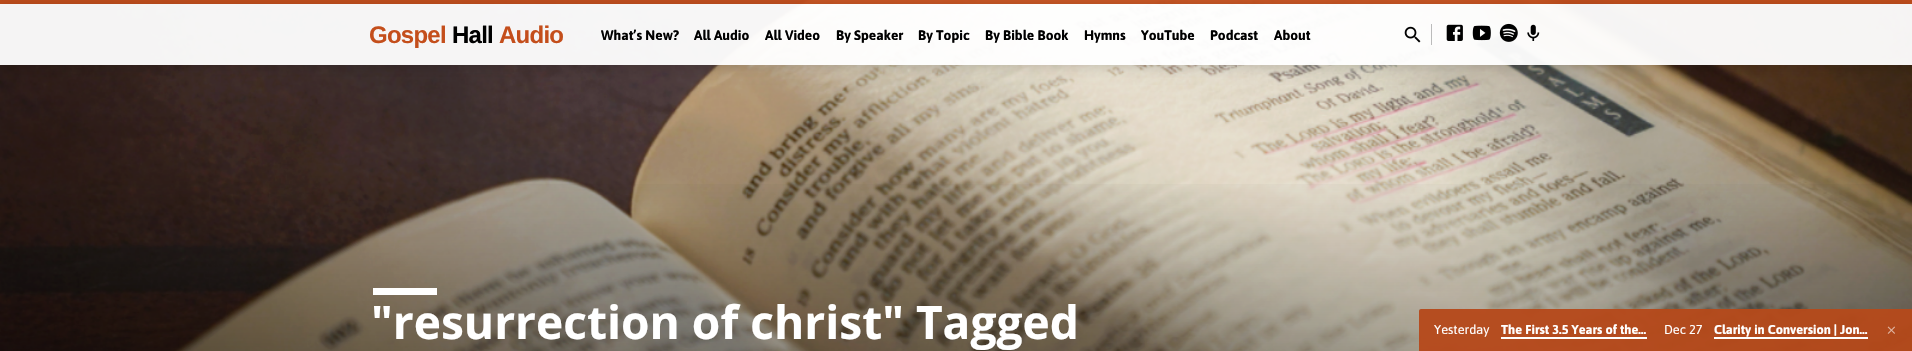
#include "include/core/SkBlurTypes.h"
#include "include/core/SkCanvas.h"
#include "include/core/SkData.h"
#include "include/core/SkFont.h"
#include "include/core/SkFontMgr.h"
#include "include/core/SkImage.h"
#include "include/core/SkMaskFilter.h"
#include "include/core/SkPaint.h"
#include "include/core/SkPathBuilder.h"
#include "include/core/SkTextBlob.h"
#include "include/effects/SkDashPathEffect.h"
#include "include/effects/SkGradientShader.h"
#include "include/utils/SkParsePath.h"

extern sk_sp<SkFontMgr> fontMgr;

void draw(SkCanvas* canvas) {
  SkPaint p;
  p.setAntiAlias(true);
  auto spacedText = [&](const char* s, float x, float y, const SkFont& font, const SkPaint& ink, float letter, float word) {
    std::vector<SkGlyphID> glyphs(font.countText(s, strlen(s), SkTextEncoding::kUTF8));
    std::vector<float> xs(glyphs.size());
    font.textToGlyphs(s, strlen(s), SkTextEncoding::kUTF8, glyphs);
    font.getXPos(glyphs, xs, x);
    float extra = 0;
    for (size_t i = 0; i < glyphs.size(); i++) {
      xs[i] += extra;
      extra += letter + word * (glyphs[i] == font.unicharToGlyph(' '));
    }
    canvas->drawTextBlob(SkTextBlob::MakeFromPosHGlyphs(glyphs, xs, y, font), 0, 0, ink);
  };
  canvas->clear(SK_ColorWHITE);
  canvas->drawImageRect(SkImages::DeferredFromEncodedData(SkData::MakeFromFileName("images/6.png")), SkRect::MakeLTRB(0, 0, 1912, 351), SkSamplingOptions());
  p.setColor(SkColorSetARGB(242, 196, 78, 27));
  canvas->drawRect(SkRect::MakeLTRB(0, 0, 1912, 4), p);
  p.setColor(SkColorSetARGB(242, 255, 255, 255));
  canvas->drawRect(SkRect::MakeLTRB(0, 4, 1912, 65), p);
  canvas->save();
  canvas->clipPath(SkPathBuilder(SkPathFillType::kEvenOdd).moveTo(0, 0).lineTo(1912, 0).lineTo(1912, 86).lineTo(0, 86).close().moveTo(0, 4).lineTo(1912, 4).lineTo(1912, 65).lineTo(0, 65).close().detach(), true);
  p.setColor(SkColorSetARGB(36, 0, 0, 0));
  p.setMaskFilter(SkMaskFilter::MakeBlur(kNormal_SkBlurStyle, 6));
  canvas->drawRect(SkRect::MakeLTRB(0, 6, 1912, 67), p);
  p.setMaskFilter(nullptr);
  canvas->restore();
  canvas->drawImageRect(SkImages::DeferredFromEncodedData(SkData::MakeFromFileName("images/1.png")), SkRect::MakeLTRB(1404, 26, 1421, 43), SkSamplingOptions());
  p.setColor(SkColorSetRGB(187, 187, 187));
  canvas->drawRect(SkRect::MakeLTRB(1431, 24, 1432, 45), p);
  canvas->drawImageRect(SkImages::DeferredFromEncodedData(SkData::MakeFromFileName("images/2.png")), SkRect::MakeLTRB(1446, 24, 1463, 41), SkSamplingOptions());
  canvas->drawImageRect(SkImages::DeferredFromEncodedData(SkData::MakeFromFileName("images/3.png")), SkRect::MakeLTRB(1472, 25, 1491, 41), SkSamplingOptions());
  canvas->drawImageRect(SkImages::DeferredFromEncodedData(SkData::MakeFromFileName("images/4.png")), SkRect::MakeLTRB(1499, 23, 1518, 42), SkSamplingOptions());
  canvas->drawImageRect(SkImages::DeferredFromEncodedData(SkData::MakeFromFileName("images/5.png")), SkRect::MakeLTRB(1527, 24, 1540, 41), SkSamplingOptions());
  {
    const SkColor colors[] = {SkColorSetARGB(0, 0, 0, 0), SkColorSetARGB(0, 0, 0, 0), SkColorSetARGB(71, 0, 0, 0), SkColorSetARGB(71, 0, 0, 0)};
    const float stops[] = {0, 0.36f, 0.76f, 1};
    const SkPoint ends[] = {{956, 0}, {956, 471}};
    p.setShader(SkGradientShader::MakeLinear(ends, colors, stops, 4, SkTileMode::kClamp));
    p.setAlpha(255);
  }
  canvas->drawRect(SkRect::MakeLTRB(0, 184, 1912, 351), p);
  p.setShader(nullptr);
  p.setColor(SK_ColorWHITE);
  canvas->drawRect(SkRect::MakeLTRB(373, 288, 437, 295), p);
  p.setColor(SkColorSetARGB(242, 196, 78, 27));
  canvas->drawPath(SkPathBuilder().moveTo(1421, 309).lineTo(1912, 309).lineTo(1912, 351).lineTo(1419, 351).lineTo(1419, 311).cubicTo(1419, 310, 1420, 309, 1421, 309).close().detach(), p);
  p.setColor(SkColorSetARGB(18, 0, 0, 0));
  canvas->drawRect(SkRect::MakeLTRB(1419, 309, 1912, 351), p);
  p.setColor(SK_ColorWHITE);
  canvas->drawRect(SkRect::MakeLTRB(1501, 337, 1647, 339), p);
  canvas->drawRect(SkRect::MakeLTRB(1714, 337, 1868, 339), p);
  canvas->drawImageRect(SkImages::DeferredFromEncodedData(SkData::MakeFromFileName("images/7.png")), SkRect::MakeLTRB(1887, 326, 1895, 334), SkSamplingOptions());
  SkFont font1(fontMgr->matchFamilyStyle("Arimo", SkFontStyle::Bold()), 24);
  font1.setSubpixel(true);
  p.setColor(SkColorSetRGB(196, 78, 27));
  spacedText("Gospel", 369, 43, font1, p, -0.75f, 0);
  p.setColor(SK_ColorBLACK);
  spacedText("Hall", 452, 43, font1, p, -0.75f, 0);
  p.setColor(SkColorSetRGB(196, 78, 27));
  spacedText("Audio", 499, 43, font1, p, -0.75f, 0);
  SkFont font2(fontMgr->matchFamilyStyle("Asap", SkFontStyle::Bold()), 13.75f);
  font2.setSubpixel(true);
  p.setColor(SK_ColorBLACK);
  canvas->drawString("What’s New?", 601, 40, font2, p);
  canvas->drawString("All Audio", 694, 40, font2, p);
  canvas->drawString("All Video", 765, 40, font2, p);
  canvas->drawString("By Speaker", 836, 40, font2, p);
  canvas->drawString("By Topic", 918, 40, font2, p);
  canvas->drawString("By Bible Book", 985, 40, font2, p);
  canvas->drawString("Hymns", 1084, 40, font2, p);
  canvas->drawString("YouTube", 1141, 40, font2, p);
  canvas->drawString("Podcast", 1210, 40, font2, p);
  canvas->drawString("About", 1274, 40, font2, p);
  SkFont font3(fontMgr->matchFamilyStyle("Open Sans", SkFontStyle::Bold()), 46.1f);
  font3.setSubpixel(true);
  p.setColor(SK_ColorWHITE);
  canvas->drawString("\"resurrection of christ\" Tagged", 371, 339, font3, p);
  SkFont font4(fontMgr->matchFamilyStyle("Asap", SkFontStyle::Normal()), 12.75f);
  font4.setSubpixel(true);
  canvas->drawString("Yesterday", 1434, 334, font4, p);
  SkFont font5(fontMgr->matchFamilyStyle("Asap", SkFontStyle::Bold()), 12.75f);
  font5.setSubpixel(true);
  canvas->drawString("The First 3.5 Years of the…", 1501, 334, font5, p);
  canvas->drawString("Dec 27", 1664, 334, font4, p);
  canvas->drawString("Clarity in Conversion | Jon…", 1714, 334, font5, p);
}
